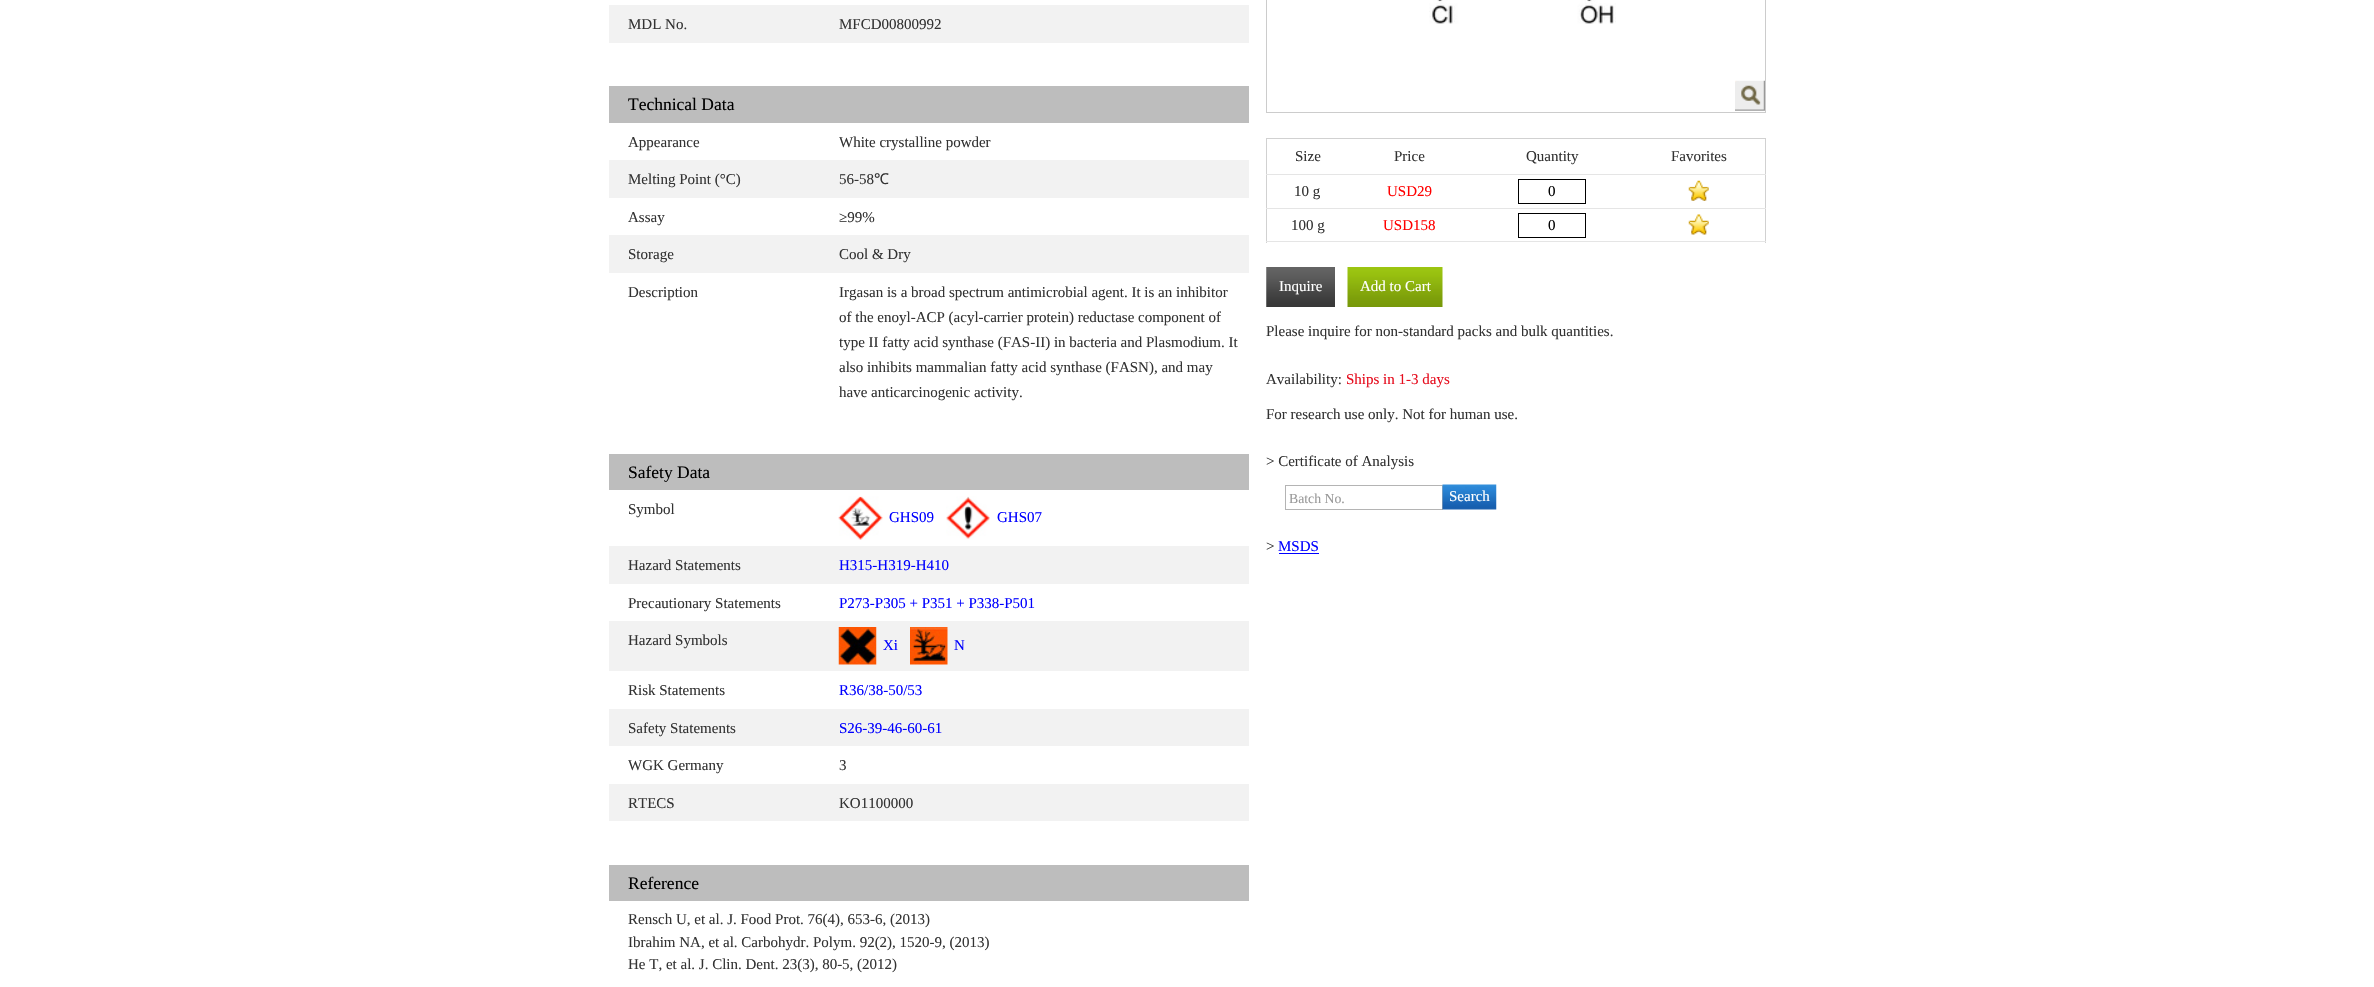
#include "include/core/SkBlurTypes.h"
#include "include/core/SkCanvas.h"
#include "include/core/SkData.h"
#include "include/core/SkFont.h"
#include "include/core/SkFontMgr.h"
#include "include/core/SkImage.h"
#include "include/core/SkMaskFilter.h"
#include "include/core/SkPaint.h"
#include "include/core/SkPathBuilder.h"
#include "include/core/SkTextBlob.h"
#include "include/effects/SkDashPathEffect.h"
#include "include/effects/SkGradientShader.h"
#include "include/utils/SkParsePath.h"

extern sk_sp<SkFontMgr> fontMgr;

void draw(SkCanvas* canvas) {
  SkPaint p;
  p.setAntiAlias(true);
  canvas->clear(SK_ColorWHITE);
  p.setColor(SkColorSetRGB(242, 242, 242));
  canvas->drawRect(SkRect::MakeLTRB(609, 5, 1249, 43), p);
  p.setColor(SkColorSetRGB(189, 189, 189));
  canvas->drawRect(SkRect::MakeLTRB(609, 86, 1249, 123), p);
  p.setColor(SkColorSetRGB(242, 242, 242));
  canvas->drawRect(SkRect::MakeLTRB(609, 160, 1249, 198), p);
  canvas->drawRect(SkRect::MakeLTRB(609, 235, 1249, 273), p);
  p.setColor(SkColorSetRGB(189, 189, 189));
  canvas->drawRect(SkRect::MakeLTRB(609, 454, 1249, 490), p);
  canvas->drawImageRect(SkImages::DeferredFromEncodedData(SkData::MakeFromFileName("images/1.png")), SkRect::MakeLTRB(838, 496, 883, 540), SkSamplingOptions());
  canvas->drawImageRect(SkImages::DeferredFromEncodedData(SkData::MakeFromFileName("images/2.png")), SkRect::MakeLTRB(946, 496, 990, 540), SkSamplingOptions());
  p.setColor(SkColorSetRGB(242, 242, 242));
  canvas->drawRect(SkRect::MakeLTRB(609, 546, 1249, 584), p);
  canvas->drawRect(SkRect::MakeLTRB(609, 621, 1249, 671), p);
  canvas->drawImageRect(SkImages::DeferredFromEncodedData(SkData::MakeFromFileName("images/3.png")), SkRect::MakeLTRB(838, 627, 877, 665), SkSamplingOptions());
  canvas->drawImageRect(SkImages::DeferredFromEncodedData(SkData::MakeFromFileName("images/4.png")), SkRect::MakeLTRB(910, 627, 948, 665), SkSamplingOptions());
  canvas->drawRect(SkRect::MakeLTRB(609, 709, 1249, 746), p);
  canvas->drawRect(SkRect::MakeLTRB(609, 784, 1249, 821), p);
  p.setColor(SkColorSetRGB(189, 189, 189));
  canvas->drawRect(SkRect::MakeLTRB(609, 865, 1249, 901), p);
  p.setStyle(SkPaint::kStroke_Style);
  p.setStrokeWidth(1);
  p.setColor(SkColorSetRGB(204, 204, 204));
  canvas->drawRect(SkRect::MakeLTRB(1266.5f, -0.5f, 1765.5f, 112.5f), p);
  canvas->drawImageRect(SkImages::DeferredFromEncodedData(SkData::MakeFromFileName("images/5.png")), SkRect::MakeLTRB(1429, 0, 1616, 24), SkSamplingOptions());
  canvas->drawImageRect(SkImages::DeferredFromEncodedData(SkData::MakeFromFileName("images/6.png")), SkRect::MakeLTRB(1735, 80, 1765, 111), SkSamplingOptions());
  p.setStyle(SkPaint::kFill_Style);
  p.setColor(SkColorSetRGB(209, 209, 209));
  canvas->drawRect(SkRect::MakeLTRB(1266, 138, 1766, 139), p);
  canvas->drawRect(SkRect::MakeLTRB(1765, 138, 1766, 243), p);
  canvas->drawRect(SkRect::MakeLTRB(1266, 138, 1267, 243), p);
  p.setColor(SkColorSetRGB(229, 229, 229));
  canvas->drawRect(SkRect::MakeLTRB(1266, 174, 1766, 175), p);
  canvas->drawRect(SkRect::MakeLTRB(1266, 208, 1766, 209), p);
  canvas->drawImageRect(SkImages::DeferredFromEncodedData(SkData::MakeFromFileName("images/7.png")), SkRect::MakeLTRB(1688, 180, 1709, 201), SkSamplingOptions());
  p.setStyle(SkPaint::kStroke_Style);
  p.setColor(SK_ColorBLACK);
  canvas->drawRect(SkRect::MakeLTRB(1518.5f, 179.5f, 1585.5f, 203.5f), p);
  p.setStyle(SkPaint::kFill_Style);
  p.setColor(SkColorSetRGB(229, 229, 229));
  canvas->drawRect(SkRect::MakeLTRB(1266, 241, 1766, 242), p);
  canvas->drawImageRect(SkImages::DeferredFromEncodedData(SkData::MakeFromFileName("images/8.png")), SkRect::MakeLTRB(1688, 214, 1709, 235), SkSamplingOptions());
  p.setStyle(SkPaint::kStroke_Style);
  p.setColor(SK_ColorBLACK);
  canvas->drawRect(SkRect::MakeLTRB(1518.5f, 213.5f, 1585.5f, 237.5f), p);
  canvas->drawImageRect(SkImages::DeferredFromEncodedData(SkData::MakeFromFileName("images/9.png")), SkRect::MakeLTRB(1266, 267, 1335, 307), SkSamplingOptions());
  canvas->drawImageRect(SkImages::DeferredFromEncodedData(SkData::MakeFromFileName("images/10.png")), SkRect::MakeLTRB(1347, 267, 1443, 307), SkSamplingOptions());
  p.setColor(SkColorSetRGB(180, 180, 180));
  canvas->drawRect(SkRect::MakeLTRB(1285.5f, 485.5f, 1442.5f, 509.5f), p);
  canvas->drawImageRect(SkImages::DeferredFromEncodedData(SkData::MakeFromFileName("images/11.png")), SkRect::MakeLTRB(1442, 484, 1497, 510), SkSamplingOptions());
  p.setStyle(SkPaint::kFill_Style);
  p.setColor(SkColorSetRGB(0, 0, 255));
  canvas->drawRect(SkRect::MakeLTRB(1279, 553, 1319, 554), p);
  SkFont font1(fontMgr->matchFamilyStyle("Liberation Serif", SkFontStyle::Normal()), 15);
  font1.setSubpixel(true);
  p.setColor(SkColorSetRGB(51, 51, 51));
  canvas->drawString("MDL No.", 628, 29, font1, p);
  canvas->drawString("MFCD00800992", 839, 29, font1, p);
  SkFont font2(fontMgr->matchFamilyStyle("Liberation Serif", SkFontStyle::Normal()), 17.5f);
  font2.setSubpixel(true);
  p.setColor(SK_ColorBLACK);
  canvas->drawString("Technical Data", 628, 110, font2, p);
  p.setColor(SkColorSetRGB(51, 51, 51));
  canvas->drawString("Appearance", 628, 147, font1, p);
  canvas->drawString("White crystalline powder", 839, 147, font1, p);
  canvas->drawString("Melting Point (°C)", 628, 184, font1, p);
  canvas->drawString("56-58", 839, 184, font1, p);
  SkFont font3(fontMgr->matchFamilyStyle("Noto Sans", SkFontStyle::Normal()), 15);
  font3.setSubpixel(true);
  canvas->drawString("℃", 874, 184, font3, p);
  canvas->drawString("Assay", 628, 222, font1, p);
  canvas->drawString("≥99%", 839, 222, font1, p);
  canvas->drawString("Storage", 628, 259, font1, p);
  canvas->drawString("Cool & Dry", 839, 259, font1, p);
  canvas->drawString("Description", 628, 297, font1, p);
  canvas->drawString("Irgasan is a broad spectrum antimicrobial agent. It is an inhibitor", 839, 297, font1, p);
  canvas->drawString("of the enoyl-ACP (acyl-carrier protein) reductase component of", 839, 322, font1, p);
  canvas->drawString("type II fatty acid synthase (FAS-II) in bacteria and Plasmodium. It", 839, 347, font1, p);
  canvas->drawString("also inhibits mammalian fatty acid synthase (FASN), and may", 839, 372, font1, p);
  canvas->drawString("have anticarcinogenic activity.", 839, 397, font1, p);
  p.setColor(SK_ColorBLACK);
  canvas->drawString("Safety Data", 628, 478, font2, p);
  p.setColor(SkColorSetRGB(51, 51, 51));
  canvas->drawString("Symbol", 628, 514, font1, p);
  p.setColor(SkColorSetRGB(0, 0, 255));
  canvas->drawString("GHS09", 889, 522, font1, p);
  canvas->drawString("GHS07", 997, 522, font1, p);
  p.setColor(SkColorSetRGB(51, 51, 51));
  canvas->drawString("Hazard Statements", 628, 570, font1, p);
  p.setColor(SkColorSetRGB(0, 0, 255));
  canvas->drawString("H315-H319-H410", 839, 570, font1, p);
  p.setColor(SkColorSetRGB(51, 51, 51));
  canvas->drawString("Precautionary Statements", 628, 608, font1, p);
  p.setColor(SkColorSetRGB(0, 0, 255));
  canvas->drawString("P273-P305 + P351 + P338-P501", 839, 608, font1, p);
  p.setColor(SkColorSetRGB(51, 51, 51));
  canvas->drawString("Hazard Symbols", 628, 645, font1, p);
  p.setColor(SkColorSetRGB(0, 0, 255));
  canvas->drawString("Xi", 883, 650, font1, p);
  canvas->drawString("N", 954, 650, font1, p);
  p.setColor(SkColorSetRGB(51, 51, 51));
  canvas->drawString("Risk Statements", 628, 695, font1, p);
  p.setColor(SkColorSetRGB(0, 0, 255));
  canvas->drawString("R36/38-50/53", 839, 695, font1, p);
  p.setColor(SkColorSetRGB(51, 51, 51));
  canvas->drawString("Safety Statements", 628, 733, font1, p);
  p.setColor(SkColorSetRGB(0, 0, 255));
  canvas->drawString("S26-39-46-60-61", 839, 733, font1, p);
  p.setColor(SkColorSetRGB(51, 51, 51));
  canvas->drawString("WGK Germany", 628, 770, font1, p);
  canvas->drawString("3", 839, 770, font1, p);
  canvas->drawString("RTECS", 628, 808, font1, p);
  canvas->drawString("KO1100000", 839, 808, font1, p);
  p.setColor(SK_ColorBLACK);
  canvas->drawString("Reference", 628, 889, font2, p);
  p.setColor(SkColorSetRGB(51, 51, 51));
  canvas->drawString("Rensch U, et al. J. Food Prot. 76(4), 653-6, (2013)", 628, 924, font1, p);
  canvas->drawString("Ibrahim NA, et al. Carbohydr. Polym. 92(2), 1520-9, (2013)", 628, 947, font1, p);
  canvas->drawString("He T, et al. J. Clin. Dent. 23(3), 80-5, (2012)", 628, 969, font1, p);
  canvas->drawString("Size", 1295, 161, font1, p);
  canvas->drawString("Price", 1394, 161, font1, p);
  canvas->drawString("Quantity", 1526, 161, font1, p);
  canvas->drawString("Favorites", 1671, 161, font1, p);
  canvas->drawString("10 g", 1294, 196, font1, p);
  p.setColor(SkColorSetRGB(255, 0, 0));
  canvas->drawString("USD29", 1387, 196, font1, p);
  p.setColor(SK_ColorBLACK);
  canvas->drawString("0", 1548, 196, font1, p);
  p.setColor(SkColorSetRGB(51, 51, 51));
  canvas->drawString("100 g", 1291, 230, font1, p);
  p.setColor(SkColorSetRGB(255, 0, 0));
  canvas->drawString("USD158", 1383, 230, font1, p);
  p.setColor(SK_ColorBLACK);
  canvas->drawString("0", 1548, 230, font1, p);
  p.setColor(SK_ColorWHITE);
  canvas->drawString("Inquire", 1279, 291, font1, p);
  canvas->drawString("Add to Cart", 1360, 291, font1, p);
  p.setColor(SkColorSetRGB(51, 51, 51));
  canvas->drawString("Please inquire for non-standard packs and bulk quantities.", 1266, 336, font1, p);
  canvas->drawString("Availability:", 1266, 384, font1, p);
  p.setColor(SkColorSetRGB(230, 13, 30));
  canvas->drawString("Ships in 1-3 days", 1346, 384, font1, p);
  p.setColor(SkColorSetRGB(51, 51, 51));
  canvas->drawString("For research use only. Not for human use.", 1266, 419, font1, p);
  canvas->drawString("> Certificate of Analysis", 1266, 466, font1, p);
  SkFont font4(fontMgr->matchFamilyStyle("Liberation Serif", SkFontStyle::Normal()), 13.75f);
  font4.setSubpixel(true);
  p.setColor(SkColorSetRGB(153, 153, 153));
  canvas->drawString("Batch No.", 1289, 503, font4, p);
  p.setColor(SK_ColorWHITE);
  canvas->drawString("Search", 1449, 501, font1, p);
  p.setColor(SkColorSetRGB(51, 51, 51));
  canvas->drawString(">", 1266, 551, font1, p);
  p.setColor(SkColorSetRGB(0, 0, 255));
  canvas->drawString("MSDS", 1278, 551, font1, p);
}
